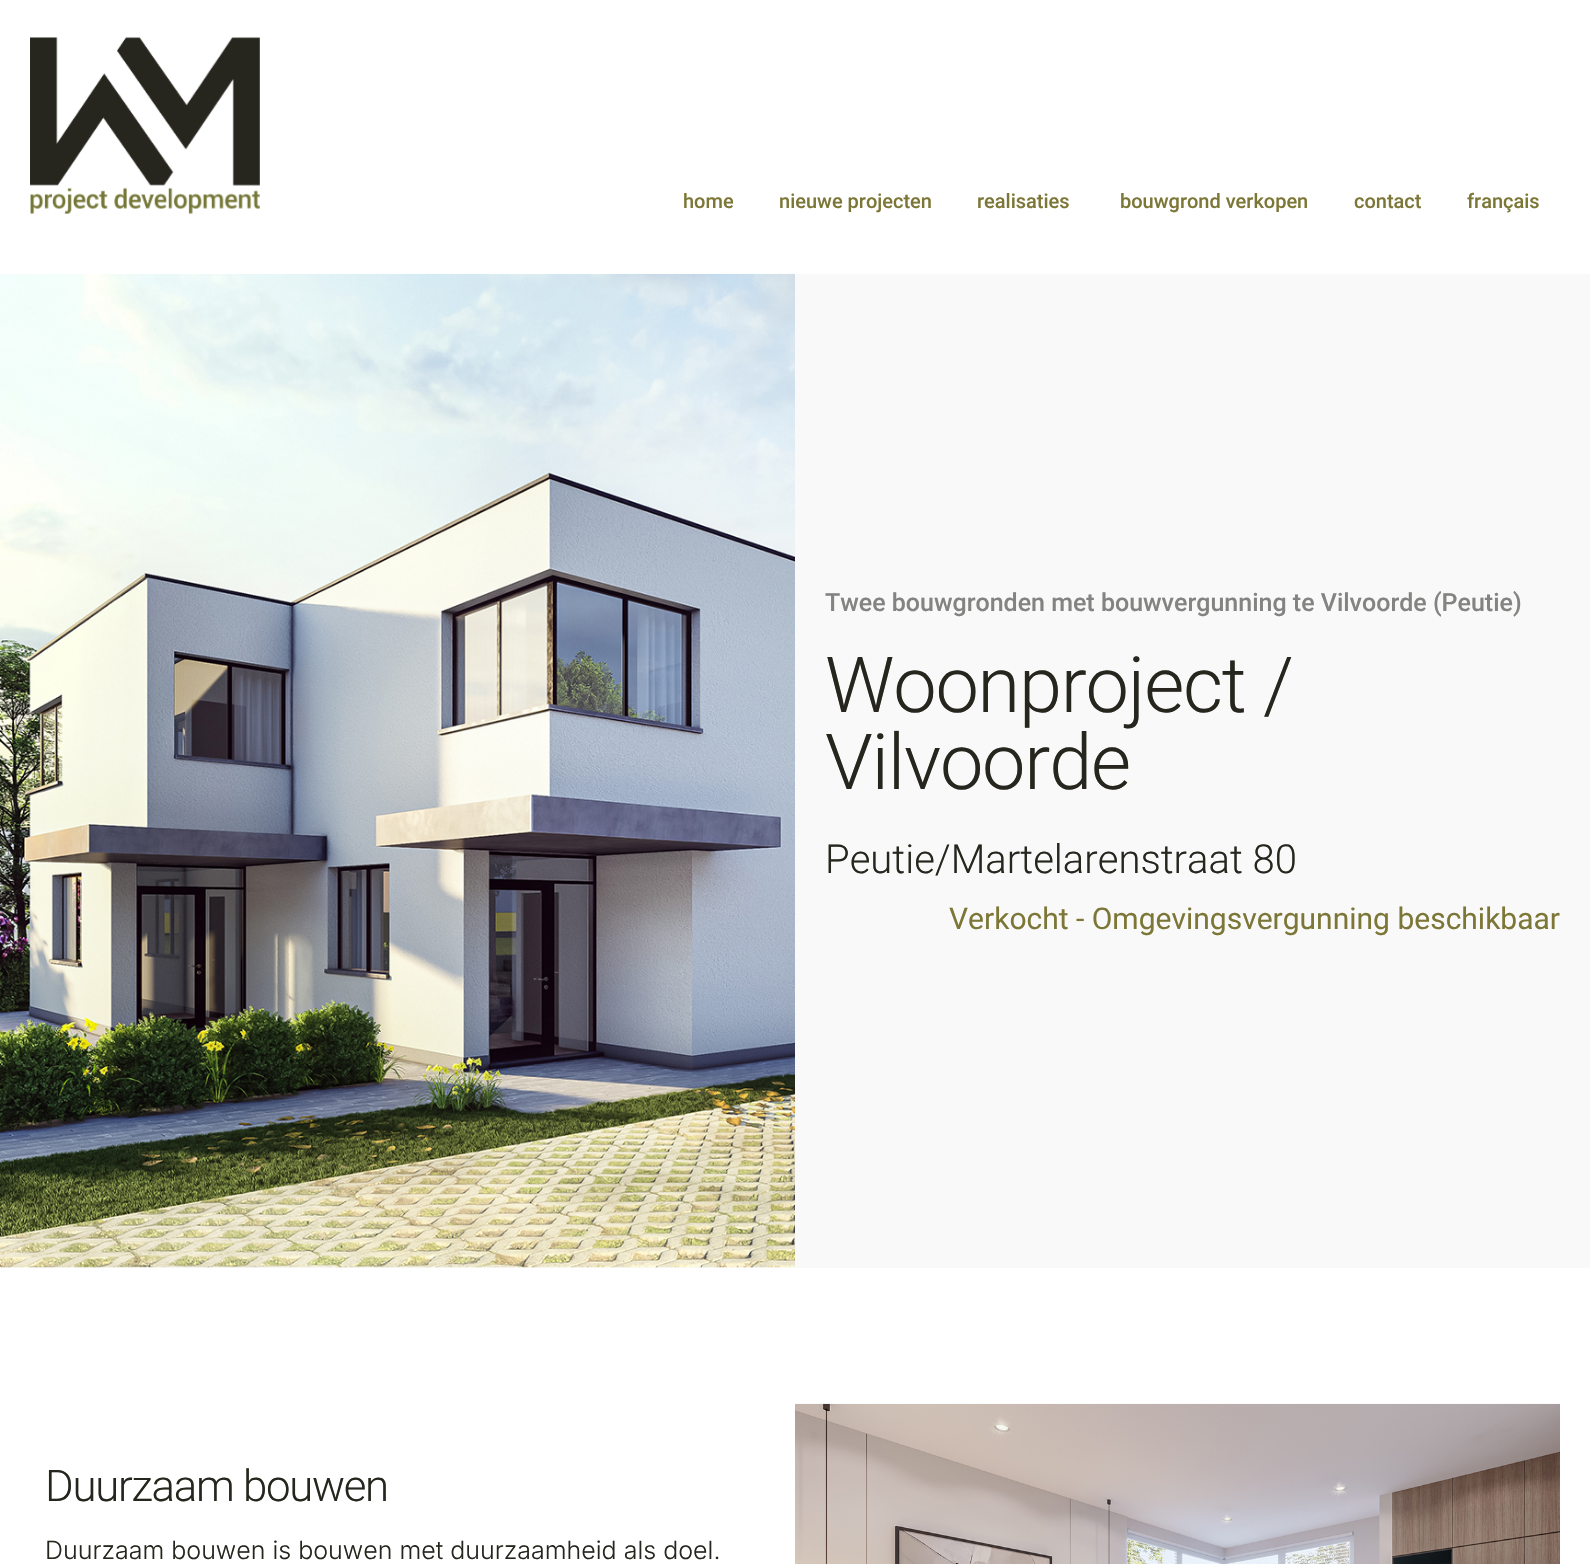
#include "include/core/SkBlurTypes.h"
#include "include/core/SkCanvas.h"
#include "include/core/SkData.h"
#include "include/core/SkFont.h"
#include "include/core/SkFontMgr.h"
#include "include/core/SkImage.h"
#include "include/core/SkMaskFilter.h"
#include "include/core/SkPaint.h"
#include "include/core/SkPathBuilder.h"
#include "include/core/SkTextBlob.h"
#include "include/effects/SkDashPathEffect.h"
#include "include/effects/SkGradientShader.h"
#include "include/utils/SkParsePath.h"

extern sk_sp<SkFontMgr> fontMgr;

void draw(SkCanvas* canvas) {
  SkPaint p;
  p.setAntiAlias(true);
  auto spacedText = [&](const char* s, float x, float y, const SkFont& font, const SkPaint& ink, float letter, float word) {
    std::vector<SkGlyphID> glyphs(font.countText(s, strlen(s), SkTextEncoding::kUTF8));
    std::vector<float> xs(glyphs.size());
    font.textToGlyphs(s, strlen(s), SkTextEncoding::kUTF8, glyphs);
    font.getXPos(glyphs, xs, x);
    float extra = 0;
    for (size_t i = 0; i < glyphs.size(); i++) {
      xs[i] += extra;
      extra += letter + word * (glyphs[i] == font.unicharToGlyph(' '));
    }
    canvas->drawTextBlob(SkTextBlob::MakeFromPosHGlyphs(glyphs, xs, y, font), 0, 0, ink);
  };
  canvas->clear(SK_ColorWHITE);
  canvas->drawImageRect(SkImages::DeferredFromEncodedData(SkData::MakeFromFileName("images/1.png")), SkRect::MakeLTRB(30, 37, 260, 214), SkSamplingOptions());
  p.setColor(SkColorSetRGB(249, 249, 249));
  canvas->drawRect(SkRect::MakeLTRB(0, 274, 1590, 1268), p);
  canvas->drawImageRect(SkImages::DeferredFromEncodedData(SkData::MakeFromFileName("images/2.png")), SkRect::MakeLTRB(0, 273, 795, 1268), SkSamplingOptions());
  canvas->drawImageRect(SkImages::DeferredFromEncodedData(SkData::MakeFromFileName("images/3.png")), SkRect::MakeLTRB(795, 1403, 1560, 1564), SkSamplingOptions());
  SkFont font1(fontMgr->matchFamilyStyle("Roboto", SkFontStyle(500, SkFontStyle::kNormal_Width, SkFontStyle::kUpright_Slant)), 20);
  font1.setSubpixel(true);
  p.setColor(SkColorSetRGB(124, 119, 55));
  canvas->drawString("home", 683, 208, font1, p);
  canvas->drawString("nieuwe projecten", 779, 208, font1, p);
  canvas->drawString("realisaties", 977, 208, font1, p);
  canvas->drawString("bouwgrond verkopen", 1120, 208, font1, p);
  canvas->drawString("contact", 1354, 208, font1, p);
  canvas->drawString("français", 1467, 208, font1, p);
  SkFont font2(fontMgr->matchFamilyStyle("Roboto", SkFontStyle(500, SkFontStyle::kNormal_Width, SkFontStyle::kUpright_Slant)), 25);
  font2.setSubpixel(true);
  p.setColor(SkColorSetRGB(131, 131, 129));
  canvas->drawString("Twee bouwgronden met bouwvergunning te Vilvoorde (Peutie)", 825, 611, font2, p);
  SkFont font3(fontMgr->matchFamilyStyle("Roboto", SkFontStyle(300, SkFontStyle::kNormal_Width, SkFontStyle::kUpright_Slant)), 77.5f);
  font3.setSubpixel(true);
  p.setColor(SkColorSetRGB(38, 38, 30));
  spacedText("Woonproject /", 825, 712, font3, p, -1.25f, 0);
  spacedText("Vilvoorde", 825, 789, font3, p, -1.25f, 0);
  SkFont font4(fontMgr->matchFamilyStyle("Roboto", SkFontStyle(300, SkFontStyle::kNormal_Width, SkFontStyle::kUpright_Slant)), 40);
  font4.setSubpixel(true);
  canvas->drawString("Peutie/Martelarenstraat 80", 825, 873, font4, p);
  SkFont font5(fontMgr->matchFamilyStyle("Roboto", SkFontStyle::Normal()), 30);
  font5.setSubpixel(true);
  p.setColor(SkColorSetRGB(124, 119, 55));
  canvas->drawString("Verkocht - Omgevingsvergunning beschikbaar", 949, 929, font5, p);
  SkFont font6(fontMgr->matchFamilyStyle("Roboto", SkFontStyle(300, SkFontStyle::kNormal_Width, SkFontStyle::kUpright_Slant)), 43.75f);
  font6.setSubpixel(true);
  p.setColor(SkColorSetRGB(38, 38, 30));
  spacedText("Duurzaam bouwen", 45, 1501, font6, p, -1.25f, 0);
  SkFont font7(fontMgr->matchFamilyStyle("Inter", SkFontStyle(300, SkFontStyle::kNormal_Width, SkFontStyle::kUpright_Slant)), 25);
  font7.setSubpixel(true);
  canvas->drawString("Duurzaam bouwen is bouwen met duurzaamheid als doel.", 45, 1559, font7, p);
}
